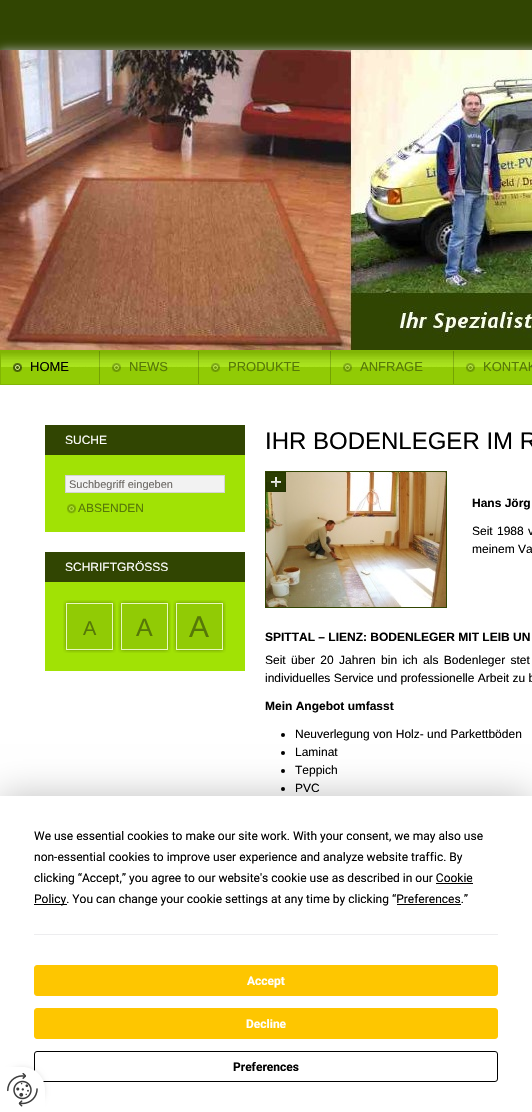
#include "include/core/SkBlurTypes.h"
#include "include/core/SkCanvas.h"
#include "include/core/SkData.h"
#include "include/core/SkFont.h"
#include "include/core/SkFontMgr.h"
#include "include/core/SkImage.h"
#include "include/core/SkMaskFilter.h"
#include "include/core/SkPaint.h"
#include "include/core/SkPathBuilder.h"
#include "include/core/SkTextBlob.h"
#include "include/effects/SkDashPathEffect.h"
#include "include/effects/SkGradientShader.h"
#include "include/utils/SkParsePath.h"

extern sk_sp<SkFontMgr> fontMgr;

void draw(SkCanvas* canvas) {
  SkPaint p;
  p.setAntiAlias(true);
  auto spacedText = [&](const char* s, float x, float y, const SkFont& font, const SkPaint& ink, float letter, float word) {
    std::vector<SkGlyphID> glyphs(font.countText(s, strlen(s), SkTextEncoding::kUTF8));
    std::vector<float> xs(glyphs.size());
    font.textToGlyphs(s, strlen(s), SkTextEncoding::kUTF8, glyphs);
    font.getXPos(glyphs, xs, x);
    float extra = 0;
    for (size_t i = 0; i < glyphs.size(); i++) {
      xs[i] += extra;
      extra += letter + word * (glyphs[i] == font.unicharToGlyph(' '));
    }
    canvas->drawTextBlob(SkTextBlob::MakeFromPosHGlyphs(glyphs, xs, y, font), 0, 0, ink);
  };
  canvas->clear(SkColorSetRGB(49, 69, 2));
  p.setColor(SkColorSetRGB(175, 175, 175));
  p.setMaskFilter(SkMaskFilter::MakeBlur(kNormal_SkBlurStyle, 5));
  canvas->drawRect(SkRect::MakeLTRB(0, 50, 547, 1061), p);
  p.setMaskFilter(nullptr);
  canvas->drawImageRect(SkImages::DeferredFromEncodedData(SkData::MakeFromFileName("images/1.png")), SkRect::MakeLTRB(0, 50, 532, 350), SkSamplingOptions());
  p.setColor(SkColorSetRGB(161, 226, 5));
  canvas->drawRect(SkRect::MakeLTRB(0, 350, 532, 385), p);
  canvas->drawImageRect(SkImages::DeferredFromEncodedData(SkData::MakeFromFileName("images/2.png")), SkRect::MakeLTRB(0, 350, 532, 385), SkSamplingOptions());
  p.setColor(SkColorSetRGB(129, 181, 4));
  canvas->drawRect(SkRect::MakeLTRB(0, 351, 1, 384), p);
  canvas->drawImageRect(SkImages::DeferredFromEncodedData(SkData::MakeFromFileName("images/3.png")), SkRect::MakeLTRB(13, 363, 22, 372), SkSamplingOptions());
  p.setColor(SkColorSetARGB(51, 0, 0, 0));
  canvas->drawRect(SkRect::MakeLTRB(99, 351, 100, 384), p);
  canvas->drawImageRect(SkImages::DeferredFromEncodedData(SkData::MakeFromFileName("images/4.png")), SkRect::MakeLTRB(112, 363, 121, 372), SkSamplingOptions());
  canvas->drawRect(SkRect::MakeLTRB(198, 351, 199, 384), p);
  canvas->drawImageRect(SkImages::DeferredFromEncodedData(SkData::MakeFromFileName("images/5.png")), SkRect::MakeLTRB(211, 363, 220, 372), SkSamplingOptions());
  canvas->drawRect(SkRect::MakeLTRB(330, 351, 331, 384), p);
  canvas->drawImageRect(SkImages::DeferredFromEncodedData(SkData::MakeFromFileName("images/6.png")), SkRect::MakeLTRB(343, 363, 352, 372), SkSamplingOptions());
  canvas->drawRect(SkRect::MakeLTRB(453, 351, 454, 384), p);
  canvas->drawImageRect(SkImages::DeferredFromEncodedData(SkData::MakeFromFileName("images/7.png")), SkRect::MakeLTRB(466, 363, 475, 372), SkSamplingOptions());
  p.setColor(SK_ColorWHITE);
  canvas->drawRect(SkRect::MakeLTRB(0, 385, 532, 796), p);
  p.setColor(SkColorSetRGB(161, 226, 5));
  canvas->drawRect(SkRect::MakeLTRB(45, 455, 245, 532), p);
  p.setColor(SkColorSetRGB(49, 69, 2));
  canvas->drawRect(SkRect::MakeLTRB(45, 425, 245, 455), p);
  p.setColor(SkColorSetRGB(242, 242, 242));
  canvas->drawRect(SkRect::MakeLTRB(65.5f, 475.5f, 224.5f, 492.5f), p);
  p.setStyle(SkPaint::kStroke_Style);
  p.setStrokeWidth(1);
  p.setColor(SkColorSetRGB(214, 213, 213));
  canvas->drawRect(SkRect::MakeLTRB(65.5f, 475.5f, 224.5f, 492.5f), p);
  canvas->drawImageRect(SkImages::DeferredFromEncodedData(SkData::MakeFromFileName("images/8.png")), SkRect::MakeLTRB(67, 504, 76, 514), SkSamplingOptions());
  p.setStyle(SkPaint::kFill_Style);
  p.setColor(SkColorSetRGB(161, 226, 5));
  canvas->drawRect(SkRect::MakeLTRB(45, 582, 245, 671), p);
  p.setColor(SkColorSetRGB(49, 69, 2));
  canvas->drawRect(SkRect::MakeLTRB(45, 552, 245, 582), p);
  canvas->drawImageRect(SkImages::DeferredFromEncodedData(SkData::MakeFromFileName("images/9.png")), SkRect::MakeLTRB(63, 600, 116, 653), SkSamplingOptions());
  canvas->drawImageRect(SkImages::DeferredFromEncodedData(SkData::MakeFromFileName("images/9.png")), SkRect::MakeLTRB(118, 600, 171, 653), SkSamplingOptions());
  canvas->drawImageRect(SkImages::DeferredFromEncodedData(SkData::MakeFromFileName("images/9.png")), SkRect::MakeLTRB(173, 600, 226, 653), SkSamplingOptions());
  p.setStyle(SkPaint::kStroke_Style);
  canvas->drawRect(SkRect::MakeLTRB(265.5f, 471.5f, 446.5f, 607.5f), p);
  canvas->drawImageRect(SkImages::DeferredFromEncodedData(SkData::MakeFromFileName("images/10.png")), SkRect::MakeLTRB(266, 472, 446, 607), SkSamplingOptions());
  p.setStyle(SkPaint::kFill_Style);
  canvas->drawRect(SkRect::MakeLTRB(266, 472, 286, 492), p);
  canvas->drawImageRect(SkImages::DeferredFromEncodedData(SkData::MakeFromFileName("images/11.png")), SkRect::MakeLTRB(266, 472, 286, 492), SkSamplingOptions());
  p.setColor(SK_ColorBLACK);
  canvas->drawCircle(283, 735, 2, p);
  canvas->drawCircle(283, 753, 2, p);
  canvas->drawCircle(283, 771, 2, p);
  canvas->drawCircle(283, 789, 2, p);
  p.setColor(SkColorSetARGB(64, 0, 0, 0));
  p.setMaskFilter(SkMaskFilter::MakeBlur(kNormal_SkBlurStyle, 17.5f));
  canvas->drawRect(SkRect::MakeLTRB(0, 796, 532, 1112), p);
  p.setMaskFilter(nullptr);
  p.setColor(SK_ColorWHITE);
  canvas->drawRect(SkRect::MakeLTRB(0, 796, 532, 1112), p);
  p.setColor(SK_ColorBLACK);
  canvas->drawRect(SkRect::MakeLTRB(436, 883, 473, 884), p);
  canvas->drawRect(SkRect::MakeLTRB(34, 904, 67, 905), p);
  canvas->drawRect(SkRect::MakeLTRB(397, 904, 461, 905), p);
  p.setColor(SkColorSetRGB(237, 237, 239));
  canvas->drawRect(SkRect::MakeLTRB(34, 934, 498, 935), p);
  p.setColor(SkColorSetRGB(254, 198, 0));
  canvas->drawRoundRect(SkRect::MakeLTRB(34.5f, 965.5f, 497.5f, 995.5f), 2.5f, 2.5f, p);
  p.setStyle(SkPaint::kStroke_Style);
  canvas->drawRoundRect(SkRect::MakeLTRB(34.5f, 965.5f, 497.5f, 995.5f), 2.5f, 2.5f, p);
  p.setStyle(SkPaint::kFill_Style);
  canvas->drawRoundRect(SkRect::MakeLTRB(34.5f, 1008.5f, 497.5f, 1038.5f), 2.5f, 2.5f, p);
  p.setStyle(SkPaint::kStroke_Style);
  canvas->drawRoundRect(SkRect::MakeLTRB(34.5f, 1008.5f, 497.5f, 1038.5f), 2.5f, 2.5f, p);
  p.setColor(SK_ColorBLACK);
  canvas->drawRoundRect(SkRect::MakeLTRB(34.5f, 1051.5f, 497.5f, 1081.5f), 2.5f, 2.5f, p);
  p.setStyle(SkPaint::kFill_Style);
  p.setColor(SkColorSetARGB(26, 0, 0, 0));
  p.setMaskFilter(SkMaskFilter::MakeBlur(kNormal_SkBlurStyle, 2.5f));
  canvas->drawRoundRect(SkRect::MakeLTRB(0, 1067, 45, 1112), 22.5f, 22.5f, p);
  p.setMaskFilter(nullptr);
  p.setColor(SK_ColorWHITE);
  canvas->drawPath(SkPathBuilder().moveTo(0, 1067).lineTo(22.5f, 1067).cubicTo(35, 1067, 45, 1077, 45, 1089.5f).lineTo(45, 1112).lineTo(0, 1112).close().detach(), p);
  canvas->drawImageRect(SkImages::DeferredFromEncodedData(SkData::MakeFromFileName("images/12.png")), SkRect::MakeLTRB(7, 1073, 38, 1107), SkSamplingOptions());
  SkFont font1(fontMgr->matchFamilyStyle("Liberation Sans", SkFontStyle::Normal()), 13);
  font1.setSubpixel(true);
  p.setColor(SK_ColorBLACK);
  canvas->drawString("HOME", 30, 371, font1, p);
  p.setColor(SkColorSetRGB(86, 120, 8));
  canvas->drawString("NEWS", 129, 371, font1, p);
  canvas->drawString("PRODUKTE", 228, 371, font1, p);
  canvas->drawString("ANFRAGE", 360, 371, font1, p);
  canvas->drawString("KONTAK", 483, 371, font1, p);
  SkFont font2(fontMgr->matchFamilyStyle("Liberation Sans", SkFontStyle::Normal()), 12);
  font2.setSubpixel(true);
  p.setColor(SK_ColorWHITE);
  canvas->drawString("SUCHE", 65, 444, font2, p);
  canvas->save();
  canvas->clipRect(SkRect::MakeLTRB(69, 478, 221, 490));
  SkFont font3(fontMgr->matchFamilyStyle("Liberation Sans", SkFontStyle::Normal()), 11);
  font3.setSubpixel(true);
  p.setColor(SkColorSetRGB(107, 104, 100));
  canvas->drawString("Suchbegriff eingeben", 69, 488, font3, p);
  canvas->restore();
  p.setColor(SkColorSetRGB(86, 120, 8));
  canvas->drawString("ABSENDEN", 78, 512, font2, p);
  p.setColor(SK_ColorWHITE);
  canvas->drawString("SCHRIFTGRÖSSS", 65, 571, font2, p);
  SkFont font4(fontMgr->matchFamilyStyle("Liberation Sans", SkFontStyle::Normal()), 20);
  font4.setSubpixel(true);
  p.setColor(SkColorSetRGB(86, 120, 8));
  canvas->drawString("A", 83, 635, font4, p);
  SkFont font5(fontMgr->matchFamilyStyle("Liberation Sans", SkFontStyle::Normal()), 25);
  font5.setSubpixel(true);
  canvas->drawString("A", 136, 636, font5, p);
  SkFont font6(fontMgr->matchFamilyStyle("Liberation Sans", SkFontStyle::Normal()), 30);
  font6.setSubpixel(true);
  canvas->drawString("A", 189, 637, font6, p);
  SkFont font7(fontMgr->matchFamilyStyle("Liberation Sans", SkFontStyle::Normal()), 24);
  font7.setSubpixel(true);
  p.setColor(SK_ColorBLACK);
  canvas->drawString("IHR BODENLEGER IM R", 265, 449, font7, p);
  SkFont font8(fontMgr->matchFamilyStyle("Liberation Sans", SkFontStyle::Bold()), 12);
  font8.setSubpixel(true);
  canvas->drawString("Hans Jörg", 472, 507, font8, p);
  spacedText("Seit 1988 v", 472, 535, font2, p, 0, 1);
  canvas->drawString("meinem Va", 472, 553, font2, p);
  canvas->drawString("SPITTAL – LIENZ: BODENLEGER MIT LEIB UN", 265, 641, font8, p);
  spacedText("Seit über 20 Jahren bin ich als Bodenleger stet", 265, 664, font2, p, 0, 2);
  canvas->drawString("individuelles Service und professionelle Arbeit zu b", 265, 682, font2, p);
  canvas->drawString("Mein Angebot umfasst", 265, 710, font8, p);
  canvas->drawString("Neuverlegung von Holz- und Parkettböden", 295, 738, font2, p);
  canvas->drawString("Laminat", 295, 756, font2, p);
  canvas->drawString("Teppich", 295, 774, font2, p);
  canvas->drawString("PVC", 295, 792, font2, p);
  SkFont font9(fontMgr->matchFamilyStyle("Roboto", SkFontStyle::Normal()), 12);
  font9.setSubpixel(true);
  canvas->drawString("We use essential cookies to make our site work. With your consent, we may also use", 34, 840, font9, p);
  canvas->drawString("non-essential cookies to improve user experience and analyze website traffic. By", 34, 861, font9, p);
  canvas->drawString("clicking “Accept,” you agree to our website's cookie use as described in our Cookie", 34, 882, font9, p);
  canvas->drawString("Policy. You can change your cookie settings at any time by clicking “Preferences.”", 34, 903, font9, p);
  SkFont font10(fontMgr->matchFamilyStyle("Roboto", SkFontStyle::Bold()), 12);
  font10.setSubpixel(true);
  p.setColor(SK_ColorWHITE);
  canvas->drawString("Accept", 247, 985, font10, p);
  canvas->drawString("Decline", 246, 1028, font10, p);
  p.setColor(SK_ColorBLACK);
  canvas->drawString("Preferences", 233, 1071, font10, p);
}
